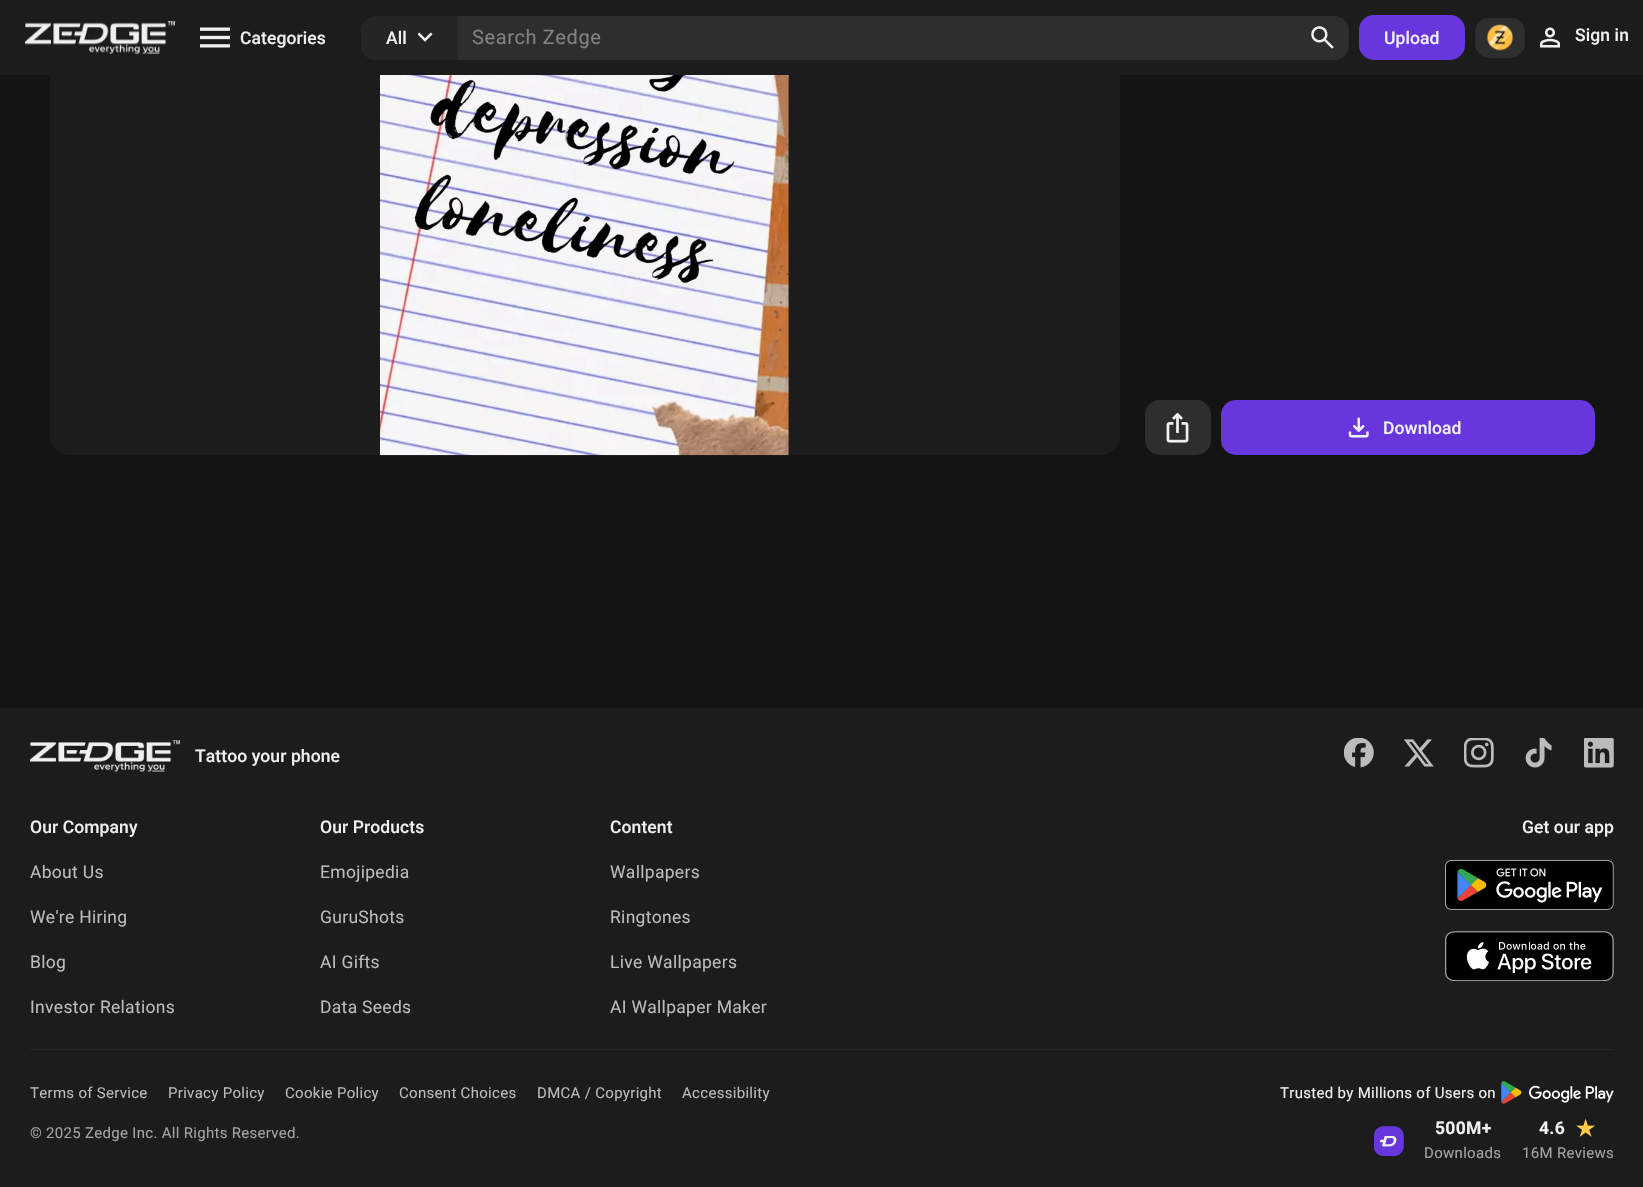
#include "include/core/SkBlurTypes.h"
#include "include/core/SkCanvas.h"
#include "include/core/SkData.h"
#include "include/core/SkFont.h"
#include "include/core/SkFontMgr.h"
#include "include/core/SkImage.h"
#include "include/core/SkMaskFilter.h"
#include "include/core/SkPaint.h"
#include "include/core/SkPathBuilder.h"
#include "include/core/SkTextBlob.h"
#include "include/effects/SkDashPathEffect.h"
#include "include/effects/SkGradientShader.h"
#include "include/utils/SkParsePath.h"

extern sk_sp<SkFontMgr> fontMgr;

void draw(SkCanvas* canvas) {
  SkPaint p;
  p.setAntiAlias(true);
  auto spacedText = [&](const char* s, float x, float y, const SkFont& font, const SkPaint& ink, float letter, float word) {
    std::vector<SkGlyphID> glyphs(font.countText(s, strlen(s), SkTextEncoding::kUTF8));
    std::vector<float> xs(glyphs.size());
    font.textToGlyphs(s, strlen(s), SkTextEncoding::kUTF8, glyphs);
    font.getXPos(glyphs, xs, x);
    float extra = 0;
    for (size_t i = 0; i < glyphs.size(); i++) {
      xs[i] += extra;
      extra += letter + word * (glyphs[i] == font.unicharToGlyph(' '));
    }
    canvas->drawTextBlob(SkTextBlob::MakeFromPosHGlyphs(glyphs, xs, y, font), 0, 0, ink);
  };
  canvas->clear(SkColorSetRGB(20, 20, 20));
  p.setColor(SkColorSetRGB(28, 28, 28));
  canvas->drawRoundRect(SkRect::MakeLTRB(50, -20, 1120, 455), 20, 20, p);
  canvas->drawRect(SkRect::MakeLTRB(0, 0, 1643, 75), p);
  canvas->drawImageRect(SkImages::DeferredFromEncodedData(SkData::MakeFromFileName("images/1.png")), SkRect::MakeLTRB(25, 21, 175, 45), SkSamplingOptions());
  canvas->drawImageRect(SkImages::DeferredFromEncodedData(SkData::MakeFromFileName("images/2.png")), SkRect::MakeLTRB(89, 44, 160, 54), SkSamplingOptions());
  canvas->drawImageRect(SkImages::DeferredFromEncodedData(SkData::MakeFromFileName("images/3.png")), SkRect::MakeLTRB(200, 27, 230, 48), SkSamplingOptions());
  p.setColor(SkColorSetRGB(37, 37, 37));
  canvas->drawPath(SkPathBuilder().moveTo(376, 16).lineTo(458, 16).lineTo(458, 60).lineTo(376, 60).cubicTo(367.5f, 60, 361, 53.5f, 361, 45).lineTo(361, 31).cubicTo(361, 22.5f, 367.5f, 16, 376, 16).close().detach(), p);
  canvas->drawImageRect(SkImages::DeferredFromEncodedData(SkData::MakeFromFileName("images/4.png")), SkRect::MakeLTRB(418, 32, 433, 42), SkSamplingOptions());
  p.setColor(SkColorSetRGB(46, 46, 46));
  canvas->drawPath(SkPathBuilder().moveTo(458, 16).lineTo(1334, 16).cubicTo(1342.5f, 16, 1349, 22.5f, 1349, 31).lineTo(1349, 45).cubicTo(1349, 53.5f, 1342.5f, 60, 1334, 60).lineTo(458, 60).close().detach(), p);
  canvas->drawImageRect(SkImages::DeferredFromEncodedData(SkData::MakeFromFileName("images/5.png")), SkRect::MakeLTRB(1311, 26, 1334, 49), SkSamplingOptions());
  p.setColor(SkColorSetRGB(104, 54, 221));
  canvas->drawRoundRect(SkRect::MakeLTRB(1359, 15, 1465, 60), 15, 15, p);
  p.setColor(SkColorSetRGB(46, 46, 46));
  canvas->drawRoundRect(SkRect::MakeLTRB(1475, 18, 1525, 58), 15, 15, p);
  canvas->drawImageRect(SkImages::DeferredFromEncodedData(SkData::MakeFromFileName("images/6.png")), SkRect::MakeLTRB(1486, 24, 1514, 51), SkSamplingOptions());
  canvas->drawImageRect(SkImages::DeferredFromEncodedData(SkData::MakeFromFileName("images/7.png")), SkRect::MakeLTRB(1540, 27, 1560, 48), SkSamplingOptions());
  canvas->drawImageRect(SkImages::DeferredFromEncodedData(SkData::MakeFromFileName("images/8.png")), SkRect::MakeLTRB(380, 75, 789, 456), SkSamplingOptions());
  canvas->drawRoundRect(SkRect::MakeLTRB(1145, 400, 1211, 455), 15, 15, p);
  canvas->drawImageRect(SkImages::DeferredFromEncodedData(SkData::MakeFromFileName("images/9.png")), SkRect::MakeLTRB(1166, 413, 1189, 443), SkSamplingOptions());
  p.setColor(SkColorSetRGB(104, 54, 221));
  canvas->drawRoundRect(SkRect::MakeLTRB(1221, 400, 1595, 455), 15, 15, p);
  canvas->drawImageRect(SkImages::DeferredFromEncodedData(SkData::MakeFromFileName("images/10.png")), SkRect::MakeLTRB(1348, 417, 1369, 438), SkSamplingOptions());
  p.setColor(SkColorSetRGB(28, 28, 28));
  canvas->drawRect(SkRect::MakeLTRB(0, 708, 1643, 1187), p);
  canvas->drawImageRect(SkImages::DeferredFromEncodedData(SkData::MakeFromFileName("images/11.png")), SkRect::MakeLTRB(30, 740, 180, 762), SkSamplingOptions());
  canvas->drawImageRect(SkImages::DeferredFromEncodedData(SkData::MakeFromFileName("images/12.png")), SkRect::MakeLTRB(94, 762, 165, 772), SkSamplingOptions());
  canvas->drawImageRect(SkImages::DeferredFromEncodedData(SkData::MakeFromFileName("images/13.png")), SkRect::MakeLTRB(1344, 738, 1374, 768), SkSamplingOptions());
  canvas->drawImageRect(SkImages::DeferredFromEncodedData(SkData::MakeFromFileName("images/14.png")), SkRect::MakeLTRB(1404, 739, 1434, 767), SkSamplingOptions());
  canvas->drawImageRect(SkImages::DeferredFromEncodedData(SkData::MakeFromFileName("images/15.png")), SkRect::MakeLTRB(1464, 738, 1494, 768), SkSamplingOptions());
  canvas->drawImageRect(SkImages::DeferredFromEncodedData(SkData::MakeFromFileName("images/16.png")), SkRect::MakeLTRB(1525, 738, 1552, 768), SkSamplingOptions());
  canvas->drawImageRect(SkImages::DeferredFromEncodedData(SkData::MakeFromFileName("images/17.png")), SkRect::MakeLTRB(1584, 738, 1614, 768), SkSamplingOptions());
  canvas->drawImageRect(SkImages::DeferredFromEncodedData(SkData::MakeFromFileName("images/18.png")), SkRect::MakeLTRB(1445, 859, 1614, 910), SkSamplingOptions());
  canvas->drawImageRect(SkImages::DeferredFromEncodedData(SkData::MakeFromFileName("images/19.png")), SkRect::MakeLTRB(1445, 931, 1614, 981), SkSamplingOptions());
  p.setColor(SkColorSetRGB(39, 39, 39));
  canvas->drawRect(SkRect::MakeLTRB(30, 1049, 1614, 1050), p);
  canvas->drawImageRect(SkImages::DeferredFromEncodedData(SkData::MakeFromFileName("images/20.png")), SkRect::MakeLTRB(1501, 1081, 1614, 1104), SkSamplingOptions());
  canvas->drawImageRect(SkImages::DeferredFromEncodedData(SkData::MakeFromFileName("images/21.png")), SkRect::MakeLTRB(1374, 1126, 1404, 1156), SkSamplingOptions());
  canvas->drawImageRect(SkImages::DeferredFromEncodedData(SkData::MakeFromFileName("images/22.png")), SkRect::MakeLTRB(1576, 1118, 1595, 1137), SkSamplingOptions());
  SkFont font1(fontMgr->matchFamilyStyle("Roboto", SkFontStyle(500, SkFontStyle::kNormal_Width, SkFontStyle::kUpright_Slant)), 17.5f);
  font1.setSubpixel(true);
  p.setColor(SkColorSetRGB(240, 240, 240));
  spacedText("Categories", 240, 44, font1, p, 0.1f, 0);
  spacedText("All", 386, 44, font1, p, 0.1f, 0);
  SkFont font2(fontMgr->matchFamilyStyle("Roboto", SkFontStyle::Normal()), 20);
  font2.setSubpixel(true);
  p.setColor(SkColorSetRGB(130, 130, 130));
  spacedText("Search Zedge", 472, 44, font2, p, 0.6f, 0);
  p.setColor(SkColorSetRGB(240, 240, 240));
  spacedText("Upload", 1384, 44, font1, p, 0.1f, 0);
  spacedText("Sign in", 1575, 41, font1, p, 0.1f, 0);
  spacedText("Download", 1383, 434, font1, p, 0.1f, 0);
  spacedText("Tattoo your phone", 195, 762, font1, p, 0.1f, 0);
  spacedText("Our Company", 30, 833, font1, p, 0.1f, 0);
  SkFont font3(fontMgr->matchFamilyStyle("Roboto", SkFontStyle::Normal()), 17.5f);
  font3.setSubpixel(true);
  p.setColor(SkColorSetRGB(187, 187, 187));
  spacedText("About Us", 30, 878, font3, p, 0.3f, 0);
  spacedText("We're Hiring", 30, 923, font3, p, 0.3f, 0);
  spacedText("Blog", 30, 968, font3, p, 0.3f, 0);
  spacedText("Investor Relations", 30, 1013, font3, p, 0.3f, 0);
  p.setColor(SkColorSetRGB(240, 240, 240));
  spacedText("Our Products", 320, 833, font1, p, 0.1f, 0);
  p.setColor(SkColorSetRGB(187, 187, 187));
  spacedText("Emojipedia", 320, 878, font3, p, 0.3f, 0);
  spacedText("GuruShots", 320, 923, font3, p, 0.3f, 0);
  spacedText("AI Gifts", 320, 968, font3, p, 0.3f, 0);
  spacedText("Data Seeds", 320, 1013, font3, p, 0.3f, 0);
  p.setColor(SkColorSetRGB(240, 240, 240));
  spacedText("Content", 610, 833, font1, p, 0.1f, 0);
  p.setColor(SkColorSetRGB(187, 187, 187));
  spacedText("Wallpapers", 610, 878, font3, p, 0.3f, 0);
  spacedText("Ringtones", 610, 923, font3, p, 0.3f, 0);
  spacedText("Live Wallpapers", 610, 968, font3, p, 0.3f, 0);
  spacedText("AI Wallpaper Maker", 610, 1013, font3, p, 0.3f, 0);
  p.setColor(SkColorSetRGB(240, 240, 240));
  spacedText("Get our app", 1522, 833, font1, p, 0.1f, 0);
  SkFont font4(fontMgr->matchFamilyStyle("Roboto", SkFontStyle::Normal()), 15);
  font4.setSubpixel(true);
  p.setColor(SkColorSetRGB(187, 187, 187));
  spacedText("Terms of Service", 30, 1098, font4, p, 0.3f, 0);
  spacedText("Privacy Policy", 168, 1098, font4, p, 0.3f, 0);
  spacedText("Cookie Policy", 285, 1098, font4, p, 0.3f, 0);
  spacedText("Consent Choices", 399, 1098, font4, p, 0.3f, 0);
  spacedText("DMCA / Copyright", 537, 1098, font4, p, 0.3f, 0);
  spacedText("Accessibility", 682, 1098, font4, p, 0.3f, 0);
  p.setColor(SkColorSetRGB(164, 164, 164));
  spacedText("© 2025 Zedge Inc. All Rights Reserved.", 30, 1138, font4, p, 0.3f, 0);
  p.setColor(SkColorSetRGB(240, 240, 240));
  spacedText("Trusted by Millions of Users on", 1280, 1098, font4, p, 0.3f, 0);
  SkFont font5(fontMgr->matchFamilyStyle("Roboto", SkFontStyle::Bold()), 17.5f);
  font5.setSubpixel(true);
  spacedText("500M+", 1435, 1134, font5, p, 0.3f, 0);
  p.setColor(SkColorSetRGB(164, 164, 164));
  spacedText("Downloads", 1424, 1158, font4, p, 0.3f, 0);
  p.setColor(SkColorSetRGB(240, 240, 240));
  spacedText("4.6", 1539, 1134, font5, p, 0.3f, 0);
  p.setColor(SkColorSetRGB(164, 164, 164));
  spacedText("16M Reviews", 1522, 1158, font4, p, 0.3f, 0);
}
